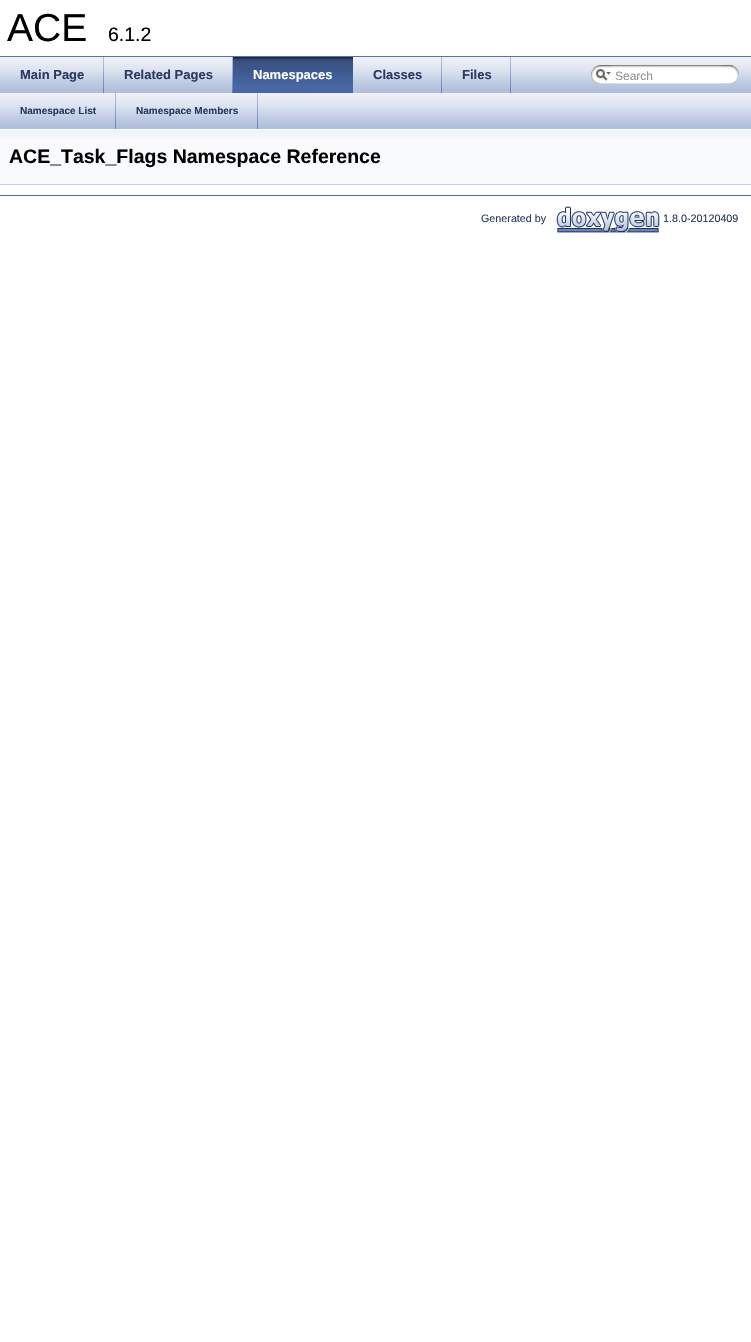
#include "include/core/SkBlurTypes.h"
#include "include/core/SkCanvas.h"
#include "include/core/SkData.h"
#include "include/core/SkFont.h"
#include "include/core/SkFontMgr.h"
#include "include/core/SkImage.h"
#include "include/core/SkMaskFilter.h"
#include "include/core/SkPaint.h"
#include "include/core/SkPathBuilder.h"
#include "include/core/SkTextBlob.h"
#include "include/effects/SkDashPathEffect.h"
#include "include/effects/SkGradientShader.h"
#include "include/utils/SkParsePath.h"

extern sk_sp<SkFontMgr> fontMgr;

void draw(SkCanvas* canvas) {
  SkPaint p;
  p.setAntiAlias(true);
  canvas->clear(SK_ColorWHITE);
  p.setColor(SkColorSetRGB(83, 115, 180));
  canvas->drawRect(SkRect::MakeLTRB(0, 56, 751, 57), p);
  canvas->drawImageRect(SkImages::DeferredFromEncodedData(SkData::MakeFromFileName("images/1.png")), SkRect::MakeLTRB(0, 57, 751, 93), SkSamplingOptions());
  canvas->drawImageRect(SkImages::DeferredFromEncodedData(SkData::MakeFromFileName("images/2.png")), SkRect::MakeLTRB(103, 57, 104, 93), SkSamplingOptions());
  canvas->drawImageRect(SkImages::DeferredFromEncodedData(SkData::MakeFromFileName("images/2.png")), SkRect::MakeLTRB(232, 57, 233, 93), SkSamplingOptions());
  canvas->drawImageRect(SkImages::DeferredFromEncodedData(SkData::MakeFromFileName("images/3.png")), SkRect::MakeLTRB(233, 57, 353, 93), SkSamplingOptions());
  canvas->drawImageRect(SkImages::DeferredFromEncodedData(SkData::MakeFromFileName("images/2.png")), SkRect::MakeLTRB(441, 57, 442, 93), SkSamplingOptions());
  canvas->drawImageRect(SkImages::DeferredFromEncodedData(SkData::MakeFromFileName("images/2.png")), SkRect::MakeLTRB(510, 57, 511, 93), SkSamplingOptions());
  canvas->drawImageRect(SkImages::DeferredFromEncodedData(SkData::MakeFromFileName("images/4.png")), SkRect::MakeLTRB(591, 65, 611, 84), SkSamplingOptions());
  canvas->drawImageRect(SkImages::DeferredFromEncodedData(SkData::MakeFromFileName("images/5.png")), SkRect::MakeLTRB(596, 69, 611, 81), SkSamplingOptions());
  canvas->drawImageRect(SkImages::DeferredFromEncodedData(SkData::MakeFromFileName("images/6.png")), SkRect::MakeLTRB(611, 65, 733, 84), SkSamplingOptions());
  canvas->drawImageRect(SkImages::DeferredFromEncodedData(SkData::MakeFromFileName("images/7.png")), SkRect::MakeLTRB(721, 65, 739, 84), SkSamplingOptions());
  canvas->drawImageRect(SkImages::DeferredFromEncodedData(SkData::MakeFromFileName("images/1.png")), SkRect::MakeLTRB(0, 93, 751, 129), SkSamplingOptions());
  canvas->drawImageRect(SkImages::DeferredFromEncodedData(SkData::MakeFromFileName("images/2.png")), SkRect::MakeLTRB(115, 93, 116, 129), SkSamplingOptions());
  canvas->drawImageRect(SkImages::DeferredFromEncodedData(SkData::MakeFromFileName("images/2.png")), SkRect::MakeLTRB(257, 93, 258, 129), SkSamplingOptions());
  p.setColor(SkColorSetRGB(249, 250, 252));
  canvas->drawRect(SkRect::MakeLTRB(0, 137, 751, 184), p);
  canvas->drawImageRect(SkImages::DeferredFromEncodedData(SkData::MakeFromFileName("images/8.png")), SkRect::MakeLTRB(0, 129, 751, 137), SkSamplingOptions());
  p.setColor(SkColorSetRGB(196, 207, 229));
  canvas->drawRect(SkRect::MakeLTRB(0, 184, 751, 185), p);
  p.setColor(SkColorSetRGB(74, 106, 170));
  canvas->drawRect(SkRect::MakeLTRB(0, 195, 751, 196), p);
  canvas->drawImageRect(SkImages::DeferredFromEncodedData(SkData::MakeFromFileName("images/9.png")), SkRect::MakeLTRB(556, 206, 660, 233), SkSamplingOptions());
  SkFont font1(fontMgr->matchFamilyStyle("Liberation Sans", SkFontStyle::Normal()), 39);
  font1.setSubpixel(true);
  p.setColor(SK_ColorBLACK);
  canvas->drawString("ACE", 7, 41, font1, p);
  SkFont font2(fontMgr->matchFamilyStyle("Liberation Sans", SkFontStyle::Normal()), 19.5f);
  font2.setSubpixel(true);
  canvas->drawString("6.1.2", 108, 41, font2, p);
  SkFont font3(fontMgr->matchFamilyStyle("Liberation Sans", SkFontStyle::Bold()), 13);
  font3.setSubpixel(true);
  p.setColor(SkColorSetRGB(40, 58, 93));
  canvas->drawString("Main Page", 20, 79, font3, p);
  canvas->drawString("Related Pages", 124, 79, font3, p);
  p.setColor(SK_ColorWHITE);
  canvas->drawString("Namespaces", 253, 79, font3, p);
  p.setColor(SkColorSetRGB(40, 58, 93));
  canvas->drawString("Classes", 373, 79, font3, p);
  canvas->drawString("Files", 462, 79, font3, p);
  SkFont font4(fontMgr->matchFamilyStyle("Liberation Sans", SkFontStyle::Normal()), 12);
  font4.setSubpixel(true);
  p.setColor(SkColorSetRGB(144, 144, 144));
  canvas->drawString("Search", 615, 80, font4, p);
  SkFont font5(fontMgr->matchFamilyStyle("Liberation Sans", SkFontStyle::Bold()), 10);
  font5.setSubpixel(true);
  p.setColor(SkColorSetRGB(40, 58, 93));
  canvas->drawString("Namespace List", 20, 114, font5, p);
  canvas->drawString("Namespace Members", 136, 114, font5, p);
  SkFont font6(fontMgr->matchFamilyStyle("Liberation Sans", SkFontStyle::Bold()), 19.5f);
  font6.setSubpixel(true);
  p.setColor(SK_ColorBLACK);
  canvas->drawString("ACE_Task_Flags Namespace Reference", 9, 163, font6, p);
  SkFont font7(fontMgr->matchFamilyStyle("Liberation Sans", SkFontStyle::Normal()), 10.75f);
  font7.setSubpixel(true);
  p.setColor(SkColorSetRGB(40, 58, 93));
  canvas->drawString("Generated by", 481, 222, font7, p);
  canvas->drawString("1.8.0-20120409", 663, 222, font7, p);
}
